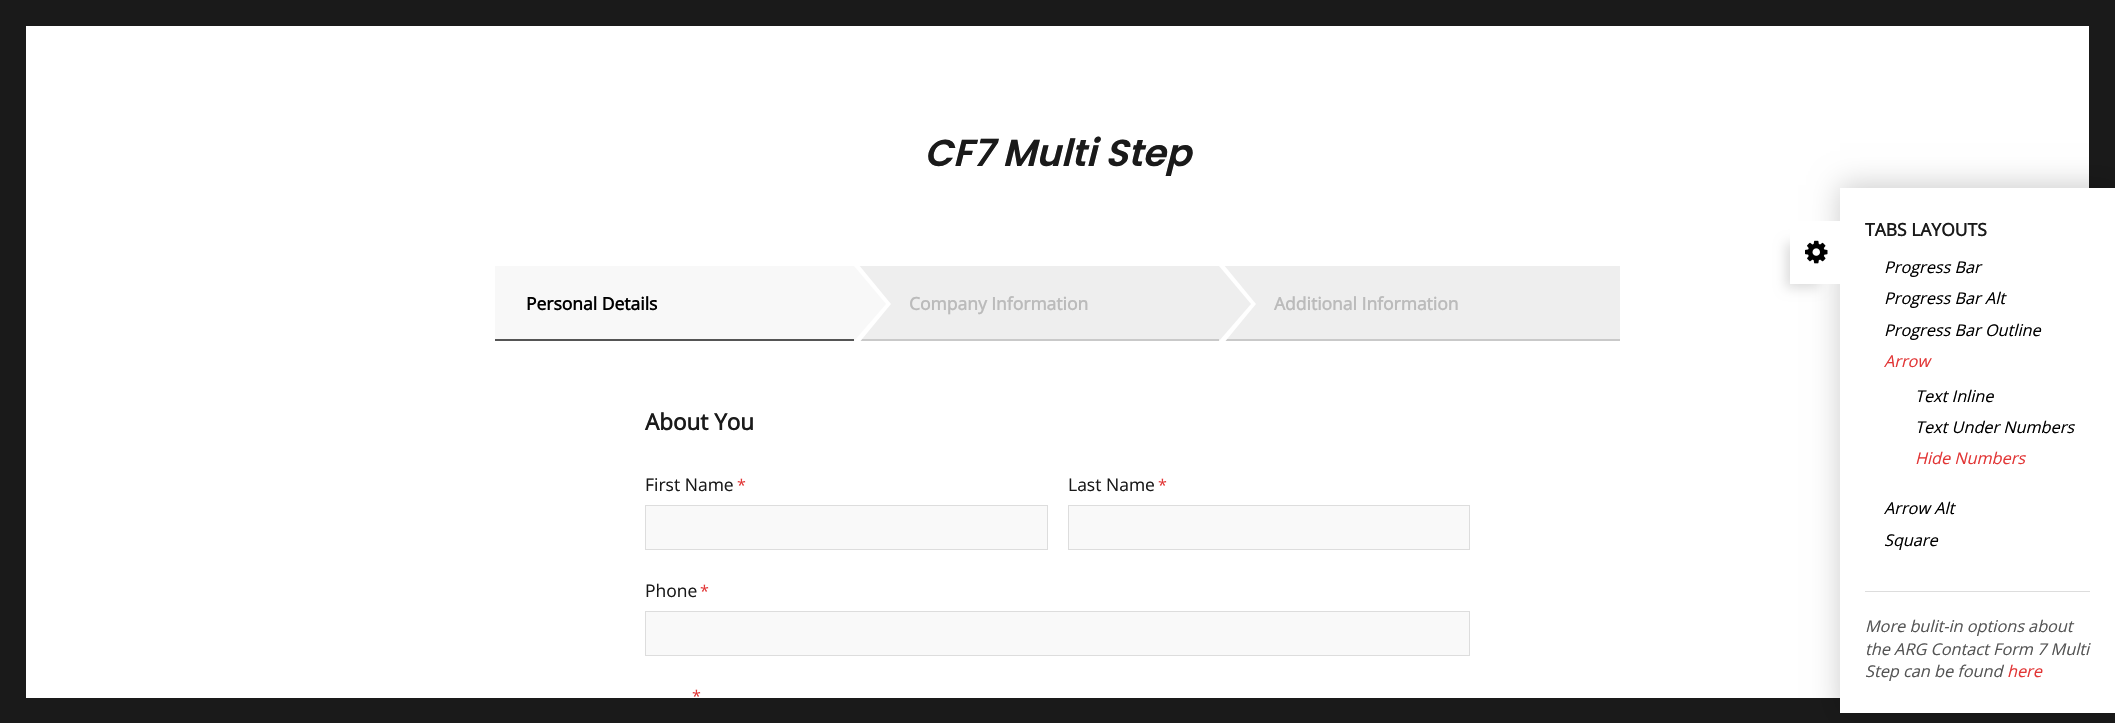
#include "include/core/SkBlurTypes.h"
#include "include/core/SkCanvas.h"
#include "include/core/SkData.h"
#include "include/core/SkFont.h"
#include "include/core/SkFontMgr.h"
#include "include/core/SkImage.h"
#include "include/core/SkMaskFilter.h"
#include "include/core/SkPaint.h"
#include "include/core/SkPathBuilder.h"
#include "include/core/SkTextBlob.h"
#include "include/effects/SkDashPathEffect.h"
#include "include/effects/SkGradientShader.h"
#include "include/utils/SkParsePath.h"

extern sk_sp<SkFontMgr> fontMgr;

void draw(SkCanvas* canvas) {
  SkPaint p;
  p.setAntiAlias(true);
  canvas->clear(SkColorSetRGB(26, 26, 26));
  p.setColor(SK_ColorWHITE);
  canvas->drawRect(SkRect::MakeLTRB(26, 26, 2089, 698), p);
  p.setColor(SkColorSetRGB(248, 248, 248));
  canvas->drawRect(SkRect::MakeLTRB(495, 266, 854, 339), p);
  p.setColor(SkColorSetRGB(85, 85, 85));
  canvas->drawRect(SkRect::MakeLTRB(495, 339, 854, 341), p);
  p.setColor(SkColorSetRGB(238, 238, 238));
  canvas->drawRect(SkRect::MakeLTRB(859, 266, 1219, 339), p);
  p.setColor(SkColorSetRGB(201, 201, 201));
  canvas->drawRect(SkRect::MakeLTRB(854, 339, 1620, 341), p);
  canvas->save();
  canvas->clipRect(SkRect::MakeLTRB(495, 266, 1620, 341));
  p.setColor(SK_ColorWHITE);
  canvas->drawPath(SkPathBuilder().moveTo(854, 349).lineTo(854, 259).lineTo(891, 304).close().detach(), p);
  canvas->restore();
  p.setColor(SkColorSetRGB(248, 248, 248));
  canvas->drawPath(SkPathBuilder().moveTo(854, 341).lineTo(854, 266).lineTo(886, 304).close().detach(), p);
  p.setColor(SkColorSetRGB(238, 238, 238));
  canvas->drawRect(SkRect::MakeLTRB(1224, 266, 1620, 339), p);
  canvas->save();
  canvas->clipRect(SkRect::MakeLTRB(495, 266, 1620, 341));
  p.setColor(SK_ColorWHITE);
  canvas->drawPath(SkPathBuilder().moveTo(1219, 349).lineTo(1219, 259).lineTo(1256, 304).close().detach(), p);
  canvas->restore();
  p.setColor(SkColorSetRGB(238, 238, 238));
  canvas->drawPath(SkPathBuilder().moveTo(1219, 341).lineTo(1219, 266).lineTo(1251, 304).close().detach(), p);
  p.setColor(SkColorSetRGB(249, 249, 249));
  canvas->drawRect(SkRect::MakeLTRB(645.5f, 505.5f, 1047.5f, 549.5f), p);
  p.setStyle(SkPaint::kStroke_Style);
  p.setStrokeWidth(1);
  p.setColor(SkColorSetRGB(221, 221, 221));
  canvas->drawRect(SkRect::MakeLTRB(645.5f, 505.5f, 1047.5f, 549.5f), p);
  p.setStyle(SkPaint::kFill_Style);
  p.setColor(SkColorSetRGB(249, 249, 249));
  canvas->drawRect(SkRect::MakeLTRB(1068.5f, 505.5f, 1469.5f, 549.5f), p);
  p.setStyle(SkPaint::kStroke_Style);
  p.setColor(SkColorSetRGB(221, 221, 221));
  canvas->drawRect(SkRect::MakeLTRB(1068.5f, 505.5f, 1469.5f, 549.5f), p);
  p.setStyle(SkPaint::kFill_Style);
  p.setColor(SkColorSetRGB(249, 249, 249));
  canvas->drawRect(SkRect::MakeLTRB(645.5f, 611.5f, 1469.5f, 655.5f), p);
  p.setStyle(SkPaint::kStroke_Style);
  p.setColor(SkColorSetRGB(221, 221, 221));
  canvas->drawRect(SkRect::MakeLTRB(645.5f, 611.5f, 1469.5f, 655.5f), p);
  p.setStyle(SkPaint::kFill_Style);
  p.setColor(SkColorSetARGB(51, 0, 0, 0));
  p.setMaskFilter(SkMaskFilter::MakeBlur(kNormal_SkBlurStyle, 14));
  canvas->drawRect(SkRect::MakeLTRB(1840, 185, 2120, 715), p);
  p.setMaskFilter(nullptr);
  p.setColor(SK_ColorWHITE);
  canvas->drawRect(SkRect::MakeLTRB(1840, 188, 2115, 713), p);
  p.setColor(SkColorSetARGB(36, 0, 0, 0));
  p.setMaskFilter(SkMaskFilter::MakeBlur(kNormal_SkBlurStyle, 6));
  canvas->drawRect(SkRect::MakeLTRB(1786, 243, 1819, 288), p);
  p.setMaskFilter(nullptr);
  p.setColor(SK_ColorWHITE);
  canvas->drawRect(SkRect::MakeLTRB(1790, 221, 1840, 284), p);
  canvas->drawImageRect(SkImages::DeferredFromEncodedData(SkData::MakeFromFileName("images/1.png")), SkRect::MakeLTRB(1805, 240, 1828, 264), SkSamplingOptions());
  p.setColor(SkColorSetRGB(221, 221, 221));
  canvas->drawRect(SkRect::MakeLTRB(1865, 591, 2090, 592), p);
  SkFont font1(fontMgr->matchFamilyStyle("Poppins", SkFontStyle(600, SkFontStyle::kNormal_Width, SkFontStyle::kItalic_Slant)), 37.5f);
  font1.setSubpixel(true);
  p.setColor(SkColorSetRGB(26, 26, 26));
  canvas->drawString("CF7 Multi Step", 924, 166, font1, p);
  SkFont font2(fontMgr->matchFamilyStyle("Open Sans", SkFontStyle::Bold()), 17.5f);
  font2.setSubpixel(true);
  p.setColor(SK_ColorBLACK);
  canvas->drawString("Personal Details", 526, 310, font2, p);
  p.setColor(SkColorSetRGB(187, 187, 187));
  canvas->drawString("Company Information", 909, 310, font2, p);
  canvas->drawString("Additional Information", 1274, 310, font2, p);
  SkFont font3(fontMgr->matchFamilyStyle("Open Sans", SkFontStyle::Bold()), 22.5f);
  font3.setSubpixel(true);
  p.setColor(SkColorSetRGB(26, 26, 26));
  canvas->drawString("About You", 645, 430, font3, p);
  SkFont font4(fontMgr->matchFamilyStyle("Open Sans", SkFontStyle::Normal()), 17.5f);
  font4.setSubpixel(true);
  canvas->drawString("First Name", 645, 491, font4, p);
  SkFont font5(fontMgr->matchFamilyStyle("Open Sans", SkFontStyle::Normal()), 16.25f);
  font5.setSubpixel(true);
  p.setColor(SkColorSetRGB(226, 54, 54));
  canvas->drawString("*", 737, 491, font5, p);
  p.setColor(SkColorSetRGB(26, 26, 26));
  canvas->drawString("Last Name", 1068, 491, font4, p);
  p.setColor(SkColorSetRGB(226, 54, 54));
  canvas->drawString("*", 1158, 491, font5, p);
  p.setColor(SkColorSetRGB(26, 26, 26));
  canvas->drawString("Phone", 645, 597, font4, p);
  p.setColor(SkColorSetRGB(226, 54, 54));
  canvas->drawString("*", 700, 597, font5, p);
  canvas->drawString("*", 692, 702, font5, p);
  p.setColor(SkColorSetRGB(26, 26, 26));
  canvas->drawString("TABS LAYOUTS", 1865, 236, font2, p);
  SkFont font6(fontMgr->matchFamilyStyle("Open Sans", SkFontStyle::Italic()), 16.25f);
  font6.setSubpixel(true);
  p.setColor(SK_ColorBLACK);
  canvas->drawString("Progress Bar", 1884, 273, font6, p);
  canvas->drawString("Progress Bar Alt", 1884, 304, font6, p);
  canvas->drawString("Progress Bar Outline", 1884, 336, font6, p);
  p.setColor(SkColorSetRGB(226, 54, 54));
  canvas->drawString("Arrow", 1884, 367, font6, p);
  p.setColor(SK_ColorBLACK);
  canvas->drawString("Text Inline", 1915, 402, font6, p);
  canvas->drawString("Text Under Numbers", 1915, 433, font6, p);
  p.setColor(SkColorSetRGB(226, 54, 54));
  canvas->drawString("Hide Numbers", 1915, 464, font6, p);
  p.setColor(SK_ColorBLACK);
  canvas->drawString("Arrow Alt", 1884, 514, font6, p);
  canvas->drawString("Square", 1884, 546, font6, p);
  p.setColor(SkColorSetRGB(85, 85, 85));
  canvas->drawString("More bulit-in options about", 1865, 632, font6, p);
  canvas->drawString("the ARG Contact Form 7 Multi", 1865, 655, font6, p);
  canvas->drawString("Step can be found", 1865, 677, font6, p);
  p.setColor(SkColorSetRGB(226, 54, 54));
  canvas->drawString("here", 2007, 677, font6, p);
}
